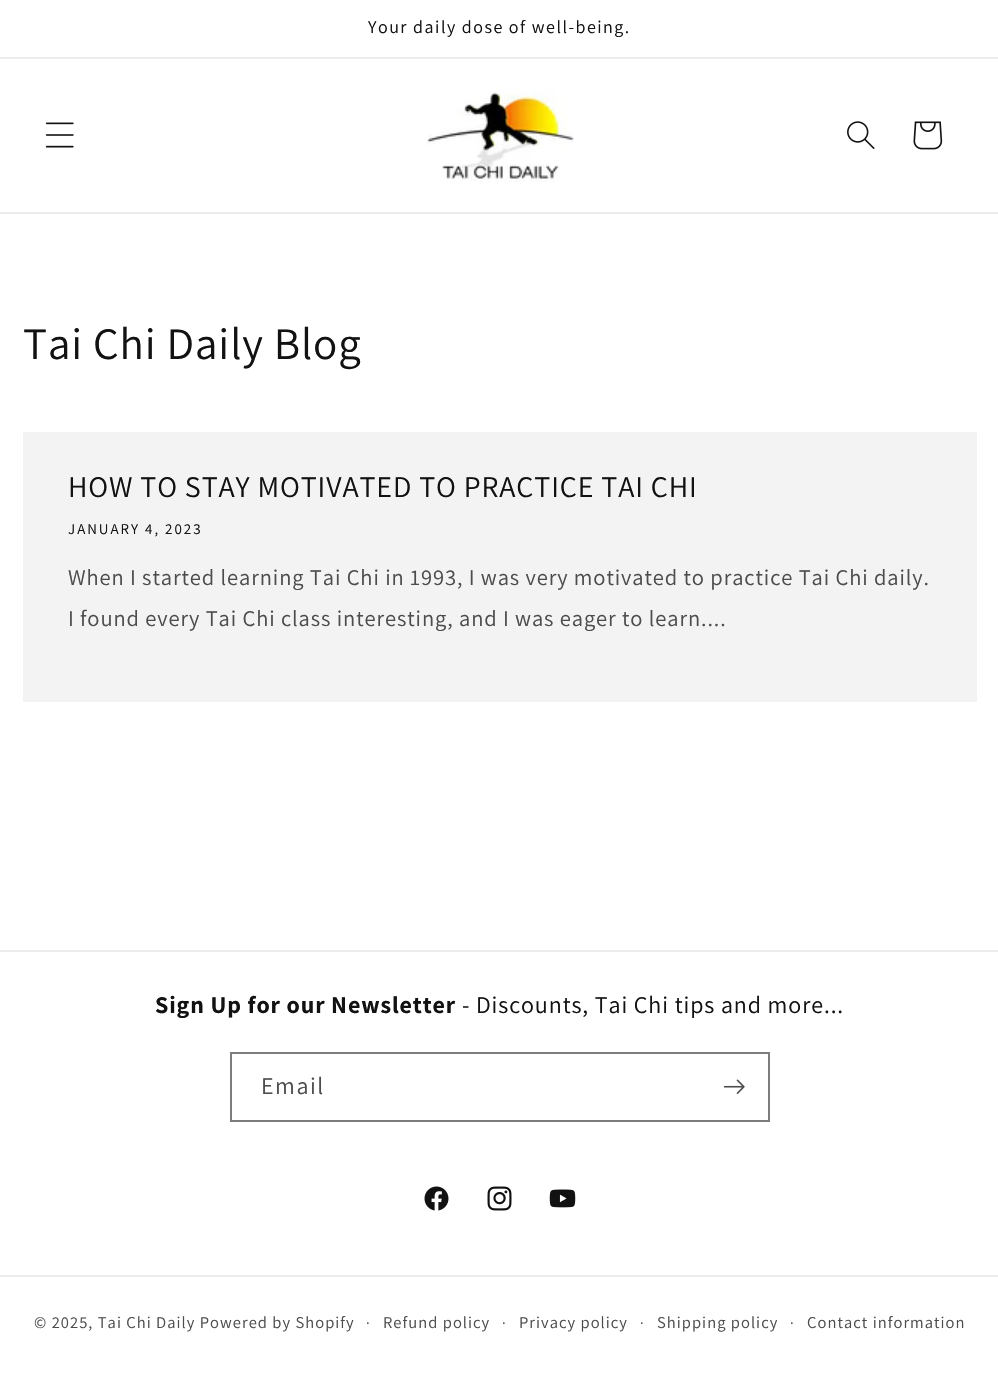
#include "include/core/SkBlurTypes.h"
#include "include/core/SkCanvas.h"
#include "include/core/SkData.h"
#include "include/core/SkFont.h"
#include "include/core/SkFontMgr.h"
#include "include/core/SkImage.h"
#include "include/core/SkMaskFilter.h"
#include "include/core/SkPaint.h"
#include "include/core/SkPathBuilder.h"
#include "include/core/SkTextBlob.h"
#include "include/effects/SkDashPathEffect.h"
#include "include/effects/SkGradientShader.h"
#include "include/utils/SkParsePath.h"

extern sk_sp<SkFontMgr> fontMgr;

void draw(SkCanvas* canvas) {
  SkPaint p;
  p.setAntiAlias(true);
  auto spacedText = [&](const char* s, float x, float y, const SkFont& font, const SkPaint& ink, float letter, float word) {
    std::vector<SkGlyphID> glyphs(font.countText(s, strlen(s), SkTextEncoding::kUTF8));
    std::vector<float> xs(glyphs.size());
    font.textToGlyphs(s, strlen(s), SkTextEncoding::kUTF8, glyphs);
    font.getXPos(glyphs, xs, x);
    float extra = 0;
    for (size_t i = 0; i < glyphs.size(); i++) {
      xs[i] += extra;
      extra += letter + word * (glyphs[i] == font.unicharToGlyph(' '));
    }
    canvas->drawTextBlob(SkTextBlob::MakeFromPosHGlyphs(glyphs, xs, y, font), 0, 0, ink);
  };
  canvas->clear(SK_ColorWHITE);
  p.setColor(SkColorSetRGB(236, 236, 236));
  canvas->drawRect(SkRect::MakeLTRB(0, 57, 998, 59), p);
  canvas->drawRect(SkRect::MakeLTRB(0, 212, 998, 214), p);
  canvas->drawImageRect(SkImages::DeferredFromEncodedData(SkData::MakeFromFileName("images/1.png")), SkRect::MakeLTRB(45, 122, 74, 148), SkSamplingOptions());
  canvas->drawImageRect(SkImages::DeferredFromEncodedData(SkData::MakeFromFileName("images/2.png")), SkRect::MakeLTRB(426, 86, 574, 182), SkSamplingOptions());
  canvas->drawImageRect(SkImages::DeferredFromEncodedData(SkData::MakeFromFileName("images/3.png")), SkRect::MakeLTRB(847, 121, 875, 149), SkSamplingOptions());
  canvas->drawImageRect(SkImages::DeferredFromEncodedData(SkData::MakeFromFileName("images/4.png")), SkRect::MakeLTRB(913, 121, 943, 150), SkSamplingOptions());
  p.setColor(SkColorSetRGB(243, 243, 243));
  canvas->drawRect(SkRect::MakeLTRB(23, 432, 977, 702), p);
  p.setColor(SkColorSetRGB(236, 236, 236));
  canvas->drawRect(SkRect::MakeLTRB(0, 950, 998, 952), p);
  p.setStyle(SkPaint::kStroke_Style);
  p.setStrokeWidth(2);
  p.setColor(SkColorSetRGB(125, 125, 125));
  canvas->drawRect(SkRect::MakeLTRB(231, 1053, 769, 1121), p);
  canvas->drawImageRect(SkImages::DeferredFromEncodedData(SkData::MakeFromFileName("images/5.png")), SkRect::MakeLTRB(723, 1079, 745, 1094), SkSamplingOptions());
  canvas->drawImageRect(SkImages::DeferredFromEncodedData(SkData::MakeFromFileName("images/6.png")), SkRect::MakeLTRB(424, 1186, 449, 1211), SkSamplingOptions());
  canvas->drawImageRect(SkImages::DeferredFromEncodedData(SkData::MakeFromFileName("images/7.png")), SkRect::MakeLTRB(487, 1186, 512, 1211), SkSamplingOptions());
  canvas->drawImageRect(SkImages::DeferredFromEncodedData(SkData::MakeFromFileName("images/8.png")), SkRect::MakeLTRB(549, 1189, 576, 1208), SkSamplingOptions());
  p.setStyle(SkPaint::kFill_Style);
  p.setColor(SkColorSetRGB(236, 236, 236));
  canvas->drawRect(SkRect::MakeLTRB(0, 1275, 998, 1277), p);
  SkFont font1(fontMgr->matchFamilyStyle("Assistant", SkFontStyle::Normal()), 18);
  font1.setSubpixel(true);
  p.setColor(SkColorSetRGB(18, 18, 18));
  spacedText("Your daily dose of well-being.", 368, 33, font1, p, 1.5f, 0);
  SkFont font2(fontMgr->matchFamilyStyle("Assistant", SkFontStyle::Normal()), 45);
  font2.setSubpixel(true);
  spacedText("Tai Chi Daily Blog", 23, 359, font2, p, 0.9f, 0);
  SkFont font3(fontMgr->matchFamilyStyle("Assistant", SkFontStyle::Normal()), 30);
  font3.setSubpixel(true);
  spacedText("HOW TO STAY MOTIVATED TO PRACTICE TAI CHI", 68, 497, font3, p, 0.9f, 0);
  SkFont font4(fontMgr->matchFamilyStyle("Assistant", SkFontStyle::Normal()), 15);
  font4.setSubpixel(true);
  spacedText("JANUARY 4, 2023", 68, 534, font4, p, 2, 0);
  SkFont font5(fontMgr->matchFamilyStyle("Assistant", SkFontStyle::Normal()), 22.5f);
  font5.setSubpixel(true);
  p.setColor(SkColorSetRGB(77, 77, 77));
  spacedText("When I started learning Tai Chi in 1993, I was very motivated to practice Tai Chi daily.", 68, 585, font5, p, 0.9f, 0);
  spacedText("I found every Tai Chi class interesting, and I was eager to learn....", 68, 626, font5, p, 0.9f, 0);
  SkFont font6(fontMgr->matchFamilyStyle("Assistant", SkFontStyle::Bold()), 24);
  font6.setSubpixel(true);
  p.setColor(SkColorSetRGB(18, 18, 18));
  spacedText("Sign Up for our Newsletter", 155, 1013, font6, p, 0.9f, 0);
  SkFont font7(fontMgr->matchFamilyStyle("Assistant", SkFontStyle::Normal()), 24);
  font7.setSubpixel(true);
  spacedText("- Discounts, Tai Chi tips and more...", 462, 1013, font7, p, 0.9f, 0);
  p.setColor(SkColorSetRGB(77, 77, 77));
  spacedText("Email", 261, 1094, font7, p, 1.5f, 0);
  SkFont font8(fontMgr->matchFamilyStyle("Assistant", SkFontStyle::Normal()), 16.5f);
  font8.setSubpixel(true);
  spacedText("© 2025, Tai Chi Daily Powered by Shopify", 34, 1328, font8, p, 1.05f, 0);
  spacedText("·", 366, 1328, font4, p, 1.05f, 0);
  spacedText("Refund policy", 383, 1328, font8, p, 1.05f, 0);
  spacedText("·", 502, 1328, font4, p, 1.05f, 0);
  spacedText("Privacy policy", 519, 1328, font8, p, 1.05f, 0);
  spacedText("·", 640, 1328, font4, p, 1.05f, 0);
  spacedText("Shipping policy", 657, 1328, font8, p, 1.05f, 0);
  spacedText("·", 790, 1328, font4, p, 1.05f, 0);
  spacedText("Contact information", 807, 1328, font8, p, 1.05f, 0);
}
